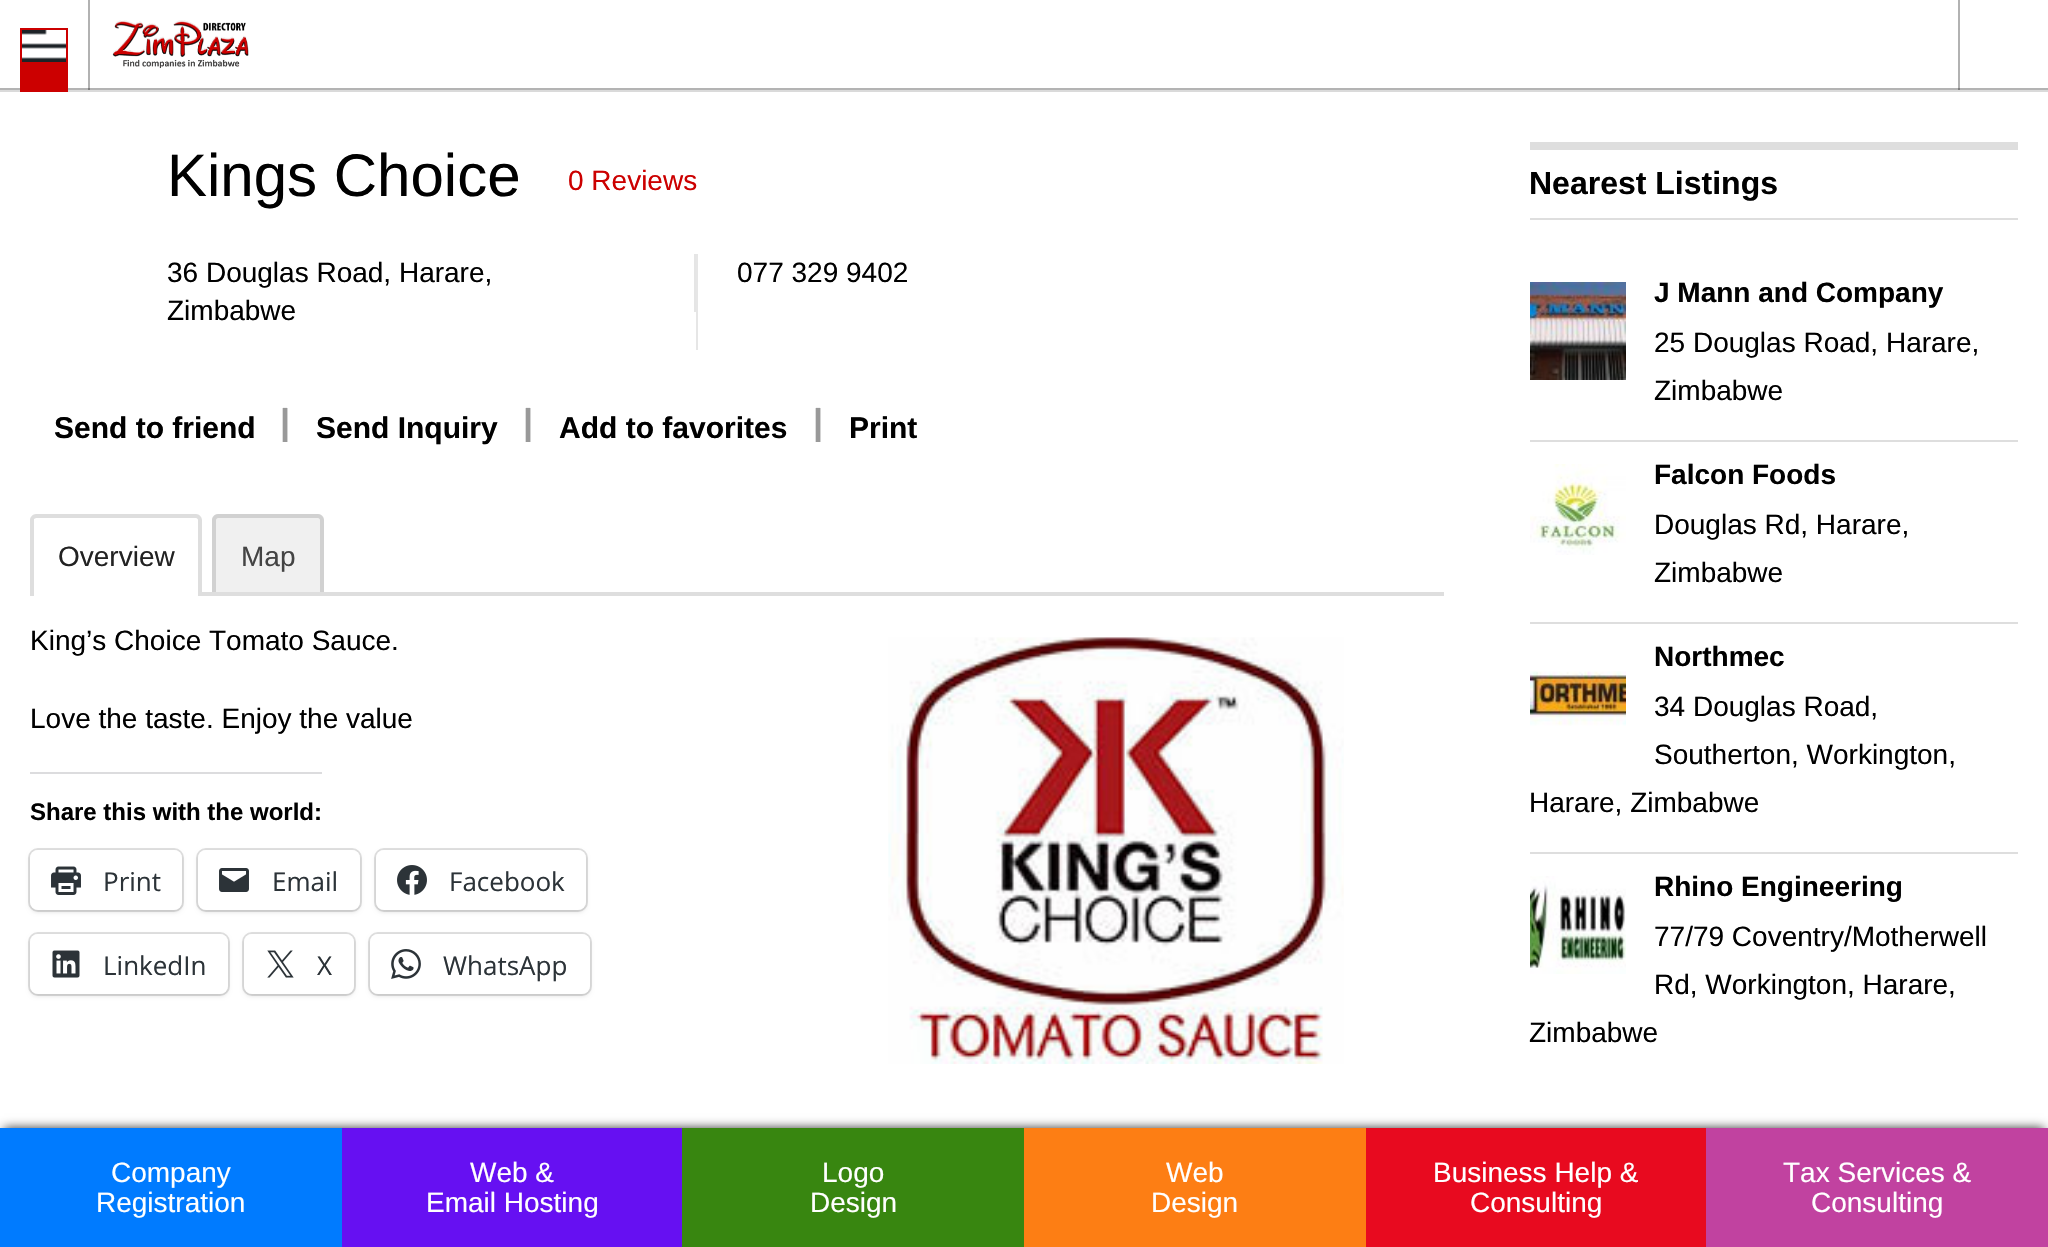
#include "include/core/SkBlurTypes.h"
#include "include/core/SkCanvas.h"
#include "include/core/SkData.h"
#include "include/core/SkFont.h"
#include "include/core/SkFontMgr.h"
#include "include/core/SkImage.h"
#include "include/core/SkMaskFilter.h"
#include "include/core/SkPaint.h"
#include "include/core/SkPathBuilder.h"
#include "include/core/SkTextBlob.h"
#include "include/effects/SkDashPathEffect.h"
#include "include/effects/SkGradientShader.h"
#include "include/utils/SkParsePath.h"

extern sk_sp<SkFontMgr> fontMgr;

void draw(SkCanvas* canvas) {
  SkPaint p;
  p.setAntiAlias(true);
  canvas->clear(SK_ColorWHITE);
  p.setColor(SkColorSetRGB(179, 179, 179));
  canvas->drawRect(SkRect::MakeLTRB(0, 88, 2048, 90), p);
  p.setColor(SkColorSetARGB(77, 0, 0, 0));
  canvas->drawRect(SkRect::MakeLTRB(88, 0, 90, 90), p);
  p.setColor(SkColorSetRGB(218, 218, 218));
  canvas->drawRect(SkRect::MakeLTRB(0, 90, 2048, 92), p);
  p.setColor(SkColorSetRGB(204, 0, 0));
  canvas->drawPath(SkPathBuilder().moveTo(20, 56).lineTo(20, 92).lineTo(68, 92).lineTo(68, 56).lineTo(66, 56).lineTo(66, 62).lineTo(22, 62).lineTo(22, 56).close().detach(), p);
  canvas->drawPath(SkPathBuilder().moveTo(20, 42).lineTo(20, 78).lineTo(68, 78).lineTo(68, 42).lineTo(66, 42).lineTo(66, 62).lineTo(22, 62).lineTo(22, 42).close().detach(), p);
  p.setStyle(SkPaint::kStroke_Style);
  p.setStrokeWidth(2);
  canvas->drawRect(SkRect::MakeLTRB(21, 29, 67, 63), p);
  canvas->drawImageRect(SkImages::DeferredFromEncodedData(SkData::MakeFromFileName("images/1.png")), SkRect::MakeLTRB(22, 30, 66, 62), SkSamplingOptions());
  canvas->drawImageRect(SkImages::DeferredFromEncodedData(SkData::MakeFromFileName("images/2.png")), SkRect::MakeLTRB(112, 20, 249, 69), SkSamplingOptions());
  p.setStyle(SkPaint::kFill_Style);
  p.setColor(SkColorSetARGB(77, 0, 0, 0));
  canvas->drawRect(SkRect::MakeLTRB(1958, 0, 1960, 90), p);
  p.setColor(SkColorSetRGB(230, 230, 230));
  canvas->drawRect(SkRect::MakeLTRB(696, 254, 698, 350), p);
  p.setColor(SkColorSetRGB(229, 229, 229));
  canvas->drawRect(SkRect::MakeLTRB(694, 254, 696, 312), p);
  p.setColor(SkColorSetRGB(222, 222, 222));
  canvas->drawRect(SkRect::MakeLTRB(202, 592, 1444, 596), p);
  canvas->drawPath(SkPathBuilder(SkPathFillType::kEvenOdd).moveTo(36, 514).lineTo(196, 514).cubicTo(199, 514, 202, 517, 202, 520).lineTo(202, 596).lineTo(30, 596).lineTo(30, 520).cubicTo(30, 517, 33, 514, 36, 514).close().moveTo(36, 518).lineTo(196, 518).cubicTo(197, 518, 198, 519, 198, 520).lineTo(198, 596).lineTo(34, 596).lineTo(34, 519).close().detach(), p);
  p.setColor(SkColorSetRGB(240, 240, 240));
  canvas->drawPath(SkPathBuilder().moveTo(218, 514).lineTo(318, 514).cubicTo(321.5f, 514, 324, 516.5f, 324, 520).lineTo(324, 592).lineTo(212, 592).lineTo(212, 520).cubicTo(212, 516.5f, 214.5f, 514, 218, 514).close().detach(), p);
  p.setColor(SkColorSetARGB(33, 0, 0, 0));
  canvas->drawPath(SkPathBuilder(SkPathFillType::kEvenOdd).moveTo(218, 514).lineTo(318, 514).cubicTo(321, 514, 324, 517, 324, 520).lineTo(324, 592).lineTo(212, 592).lineTo(212, 520).cubicTo(212, 517, 215, 514, 218, 514).close().moveTo(218, 518).lineTo(318, 518).cubicTo(319, 518, 320, 519, 320, 520).lineTo(320, 592).lineTo(216, 592).lineTo(216, 520).cubicTo(216, 519, 217, 518, 218, 518).close().detach(), p);
  p.setColor(SkColorSetRGB(220, 220, 222));
  canvas->drawRect(SkRect::MakeLTRB(30, 772, 322, 774), p);
  p.setStyle(SkPaint::kStroke_Style);
  p.setColor(SkColorSetRGB(224, 224, 224));
  canvas->drawRoundRect(SkRect::MakeLTRB(29, 849, 183, 911), 9, 9, p);
  p.setStyle(SkPaint::kFill_Style);
  p.setColor(SkColorSetARGB(31, 0, 0, 0));
  p.setMaskFilter(SkMaskFilter::MakeBlur(kNormal_SkBlurStyle, 2));
  canvas->drawRoundRect(SkRect::MakeLTRB(30, 852, 182, 912), 8, 8, p);
  p.setMaskFilter(nullptr);
  p.setColor(SK_ColorWHITE);
  canvas->drawRoundRect(SkRect::MakeLTRB(30, 850, 182, 910), 8, 8, p);
  canvas->drawImageRect(SkImages::DeferredFromEncodedData(SkData::MakeFromFileName("images/3.png")), SkRect::MakeLTRB(51, 866, 81, 895), SkSamplingOptions());
  p.setStyle(SkPaint::kStroke_Style);
  p.setColor(SkColorSetRGB(224, 224, 224));
  canvas->drawRoundRect(SkRect::MakeLTRB(197, 849, 361, 911), 9, 9, p);
  p.setStyle(SkPaint::kFill_Style);
  p.setColor(SkColorSetARGB(31, 0, 0, 0));
  p.setMaskFilter(SkMaskFilter::MakeBlur(kNormal_SkBlurStyle, 2));
  canvas->drawRoundRect(SkRect::MakeLTRB(198, 852, 360, 912), 8, 8, p);
  p.setMaskFilter(nullptr);
  p.setColor(SK_ColorWHITE);
  canvas->drawRoundRect(SkRect::MakeLTRB(198, 850, 360, 910), 8, 8, p);
  canvas->drawImageRect(SkImages::DeferredFromEncodedData(SkData::MakeFromFileName("images/4.png")), SkRect::MakeLTRB(219, 868, 249, 892), SkSamplingOptions());
  p.setStyle(SkPaint::kStroke_Style);
  p.setColor(SkColorSetRGB(224, 224, 224));
  canvas->drawRoundRect(SkRect::MakeLTRB(375, 849, 587, 911), 9, 9, p);
  p.setStyle(SkPaint::kFill_Style);
  p.setColor(SkColorSetARGB(31, 0, 0, 0));
  p.setMaskFilter(SkMaskFilter::MakeBlur(kNormal_SkBlurStyle, 2));
  canvas->drawRoundRect(SkRect::MakeLTRB(376, 852, 586, 912), 8, 8, p);
  p.setMaskFilter(nullptr);
  p.setColor(SK_ColorWHITE);
  canvas->drawRoundRect(SkRect::MakeLTRB(376, 850, 586, 910), 8, 8, p);
  canvas->drawImageRect(SkImages::DeferredFromEncodedData(SkData::MakeFromFileName("images/5.png")), SkRect::MakeLTRB(397, 865, 427, 895), SkSamplingOptions());
  p.setStyle(SkPaint::kStroke_Style);
  p.setColor(SkColorSetRGB(224, 224, 224));
  canvas->drawRoundRect(SkRect::MakeLTRB(29, 933, 229, 995), 9, 9, p);
  p.setStyle(SkPaint::kFill_Style);
  p.setColor(SkColorSetARGB(31, 0, 0, 0));
  p.setMaskFilter(SkMaskFilter::MakeBlur(kNormal_SkBlurStyle, 2));
  canvas->drawRoundRect(SkRect::MakeLTRB(30, 936, 228, 996), 8, 8, p);
  p.setMaskFilter(nullptr);
  p.setColor(SK_ColorWHITE);
  canvas->drawRoundRect(SkRect::MakeLTRB(30, 934, 228, 994), 8, 8, p);
  canvas->drawImageRect(SkImages::DeferredFromEncodedData(SkData::MakeFromFileName("images/6.png")), SkRect::MakeLTRB(52, 950, 80, 978), SkSamplingOptions());
  p.setStyle(SkPaint::kStroke_Style);
  p.setColor(SkColorSetRGB(224, 224, 224));
  canvas->drawRoundRect(SkRect::MakeLTRB(243, 933, 355, 995), 9, 9, p);
  p.setStyle(SkPaint::kFill_Style);
  p.setColor(SkColorSetARGB(31, 0, 0, 0));
  p.setMaskFilter(SkMaskFilter::MakeBlur(kNormal_SkBlurStyle, 2));
  canvas->drawRoundRect(SkRect::MakeLTRB(244, 936, 354, 996), 8, 8, p);
  p.setMaskFilter(nullptr);
  p.setColor(SK_ColorWHITE);
  canvas->drawRoundRect(SkRect::MakeLTRB(244, 934, 354, 994), 8, 8, p);
  canvas->drawImageRect(SkImages::DeferredFromEncodedData(SkData::MakeFromFileName("images/7.png")), SkRect::MakeLTRB(267, 950, 294, 978), SkSamplingOptions());
  p.setStyle(SkPaint::kStroke_Style);
  p.setColor(SkColorSetRGB(224, 224, 224));
  canvas->drawRoundRect(SkRect::MakeLTRB(369, 933, 591, 995), 9, 9, p);
  p.setStyle(SkPaint::kFill_Style);
  p.setColor(SkColorSetARGB(31, 0, 0, 0));
  p.setMaskFilter(SkMaskFilter::MakeBlur(kNormal_SkBlurStyle, 2));
  canvas->drawRoundRect(SkRect::MakeLTRB(370, 936, 590, 996), 8, 8, p);
  p.setMaskFilter(nullptr);
  p.setColor(SK_ColorWHITE);
  canvas->drawRoundRect(SkRect::MakeLTRB(370, 934, 590, 994), 8, 8, p);
  canvas->drawImageRect(SkImages::DeferredFromEncodedData(SkData::MakeFromFileName("images/8.png")), SkRect::MakeLTRB(391, 949, 421, 979), SkSamplingOptions());
  canvas->drawImageRect(SkImages::DeferredFromEncodedData(SkData::MakeFromFileName("images/9.png")), SkRect::MakeLTRB(888, 637, 1344, 1064), SkSamplingOptions());
  p.setColor(SkColorSetRGB(222, 222, 222));
  canvas->drawRect(SkRect::MakeLTRB(1530, 142, 2018, 150), p);
  canvas->drawRect(SkRect::MakeLTRB(1530, 218, 2018, 220), p);
  canvas->drawRect(SkRect::MakeLTRB(1530, 440, 2018, 442), p);
  canvas->drawImageRect(SkImages::DeferredFromEncodedData(SkData::MakeFromFileName("images/10.png")), SkRect::MakeLTRB(1530, 282, 1626, 380), SkSamplingOptions());
  canvas->drawRect(SkRect::MakeLTRB(1530, 622, 2018, 624), p);
  canvas->drawImageRect(SkImages::DeferredFromEncodedData(SkData::MakeFromFileName("images/11.png")), SkRect::MakeLTRB(1530, 464, 1626, 555), SkSamplingOptions());
  canvas->drawRect(SkRect::MakeLTRB(1530, 852, 2018, 854), p);
  canvas->drawImageRect(SkImages::DeferredFromEncodedData(SkData::MakeFromFileName("images/12.png")), SkRect::MakeLTRB(1530, 671, 1626, 726), SkSamplingOptions());
  canvas->drawImageRect(SkImages::DeferredFromEncodedData(SkData::MakeFromFileName("images/13.png")), SkRect::MakeLTRB(1530, 876, 1626, 974), SkSamplingOptions());
  p.setColor(SkColorSetRGB(51, 51, 51));
  p.setMaskFilter(SkMaskFilter::MakeBlur(kNormal_SkBlurStyle, 5));
  canvas->drawRect(SkRect::MakeLTRB(4, 1128, 2044, 1240), p);
  p.setMaskFilter(nullptr);
  p.setColor(SkColorSetRGB(0, 123, 255));
  canvas->drawRect(SkRect::MakeLTRB(0, 1128, 342, 1247), p);
  p.setColor(SkColorSetRGB(102, 16, 242));
  canvas->drawRect(SkRect::MakeLTRB(342, 1128, 682, 1247), p);
  p.setColor(SkColorSetRGB(56, 134, 16));
  canvas->drawRect(SkRect::MakeLTRB(682, 1128, 1024, 1247), p);
  p.setColor(SkColorSetRGB(253, 126, 20));
  canvas->drawRect(SkRect::MakeLTRB(1024, 1128, 1366, 1247), p);
  p.setColor(SkColorSetRGB(232, 10, 31));
  canvas->drawRect(SkRect::MakeLTRB(1366, 1128, 1706, 1247), p);
  p.setColor(SkColorSetRGB(193, 66, 160));
  canvas->drawRect(SkRect::MakeLTRB(1706, 1128, 2048, 1247), p);
  SkFont font1(fontMgr->matchFamilyStyle("Liberation Sans", SkFontStyle::Normal()), 60);
  font1.setSubpixel(true);
  p.setColor(SK_ColorBLACK);
  canvas->drawString("Kings Choice", 167, 196, font1, p);
  SkFont font2(fontMgr->matchFamilyStyle("Liberation Sans", SkFontStyle::Normal()), 28);
  font2.setSubpixel(true);
  p.setColor(SkColorSetRGB(204, 0, 0));
  canvas->drawString("0 Reviews", 568, 190, font2, p);
  p.setColor(SK_ColorBLACK);
  canvas->drawString("36 Douglas Road, Harare,", 167, 282, font2, p);
  canvas->drawString("Zimbabwe", 167, 320, font2, p);
  canvas->drawString("077 329 9402", 737, 282, font2, p);
  SkFont font3(fontMgr->matchFamilyStyle("Liberation Sans", SkFontStyle::Bold()), 30);
  font3.setSubpixel(true);
  canvas->drawString("Send to friend", 54, 438, font3, p);
  SkFont font4(fontMgr->matchFamilyStyle("Liberation Sans", SkFontStyle::Bold()), 36);
  font4.setSubpixel(true);
  p.setColor(SkColorSetRGB(153, 153, 153));
  canvas->drawString("|", 280, 434, font4, p);
  p.setColor(SK_ColorBLACK);
  canvas->drawString("Send Inquiry", 316, 438, font3, p);
  p.setColor(SkColorSetRGB(153, 153, 153));
  canvas->drawString("|", 523, 434, font4, p);
  p.setColor(SK_ColorBLACK);
  canvas->drawString("Add to favorites", 559, 438, font3, p);
  p.setColor(SkColorSetRGB(153, 153, 153));
  canvas->drawString("|", 813, 434, font4, p);
  p.setColor(SK_ColorBLACK);
  canvas->drawString("Print", 849, 438, font3, p);
  p.setColor(SkColorSetRGB(34, 34, 34));
  canvas->drawString("Overview", 58, 566, font2, p);
  p.setColor(SkColorSetRGB(68, 68, 68));
  canvas->drawString("Map", 241, 566, font2, p);
  p.setColor(SK_ColorBLACK);
  canvas->drawString("King’s Choice Tomato Sauce.", 30, 650, font2, p);
  canvas->drawString("Love the taste. Enjoy the value", 30, 728, font2, p);
  SkFont font5(fontMgr->matchFamilyStyle("Liberation Sans", SkFontStyle::Bold()), 24);
  font5.setSubpixel(true);
  canvas->drawString("Share this with the world:", 30, 820, font5, p);
  SkFont font6(fontMgr->matchFamilyStyle("Open Sans", SkFontStyle::Normal()), 26);
  font6.setSubpixel(true);
  p.setColor(SkColorSetRGB(44, 51, 56));
  canvas->drawString("Print", 103, 891, font6, p);
  canvas->drawString("Email", 272, 891, font6, p);
  canvas->drawString("Facebook", 449, 891, font6, p);
  canvas->drawString("LinkedIn", 103, 975, font6, p);
  canvas->drawString("X", 317, 975, font6, p);
  canvas->drawString("WhatsApp", 443, 975, font6, p);
  SkFont font7(fontMgr->matchFamilyStyle("Liberation Sans", SkFontStyle::Bold()), 32);
  font7.setSubpixel(true);
  p.setColor(SK_ColorBLACK);
  canvas->drawString("Nearest Listings", 1529, 194, font7, p);
  SkFont font8(fontMgr->matchFamilyStyle("Liberation Sans", SkFontStyle::Bold()), 28);
  font8.setSubpixel(true);
  canvas->drawString("J Mann and Company", 1654, 302, font8, p);
  canvas->drawString("25 Douglas Road, Harare,", 1654, 352, font2, p);
  canvas->drawString("Zimbabwe", 1654, 400, font2, p);
  canvas->drawString("Falcon Foods", 1654, 484, font8, p);
  canvas->drawString("Douglas Rd, Harare,", 1654, 534, font2, p);
  canvas->drawString("Zimbabwe", 1654, 582, font2, p);
  canvas->drawString("Northmec", 1654, 666, font8, p);
  canvas->drawString("34 Douglas Road,", 1654, 716, font2, p);
  canvas->drawString("Southerton, Workington,", 1654, 764, font2, p);
  canvas->drawString("Harare, Zimbabwe", 1529, 812, font2, p);
  canvas->drawString("Rhino Engineering", 1654, 896, font8, p);
  canvas->drawString("77/79 Coventry/Motherwell", 1654, 946, font2, p);
  canvas->drawString("Rd, Workington, Harare,", 1654, 994, font2, p);
  canvas->drawString("Zimbabwe", 1529, 1042, font2, p);
  p.setColor(SK_ColorWHITE);
  canvas->drawString("Company", 111, 1182, font2, p);
  canvas->drawString("Registration", 96, 1212, font2, p);
  canvas->drawString("Web &", 470, 1182, font2, p);
  canvas->drawString("Email Hosting", 426, 1212, font2, p);
  canvas->drawString("Logo", 822, 1182, font2, p);
  canvas->drawString("Design", 810, 1212, font2, p);
  canvas->drawString("Web", 1166, 1182, font2, p);
  canvas->drawString("Design", 1151, 1212, font2, p);
  canvas->drawString("Business Help &", 1433, 1182, font2, p);
  canvas->drawString("Consulting", 1470, 1212, font2, p);
  canvas->drawString("Tax Services &", 1783, 1182, font2, p);
  canvas->drawString("Consulting", 1811, 1212, font2, p);
}
